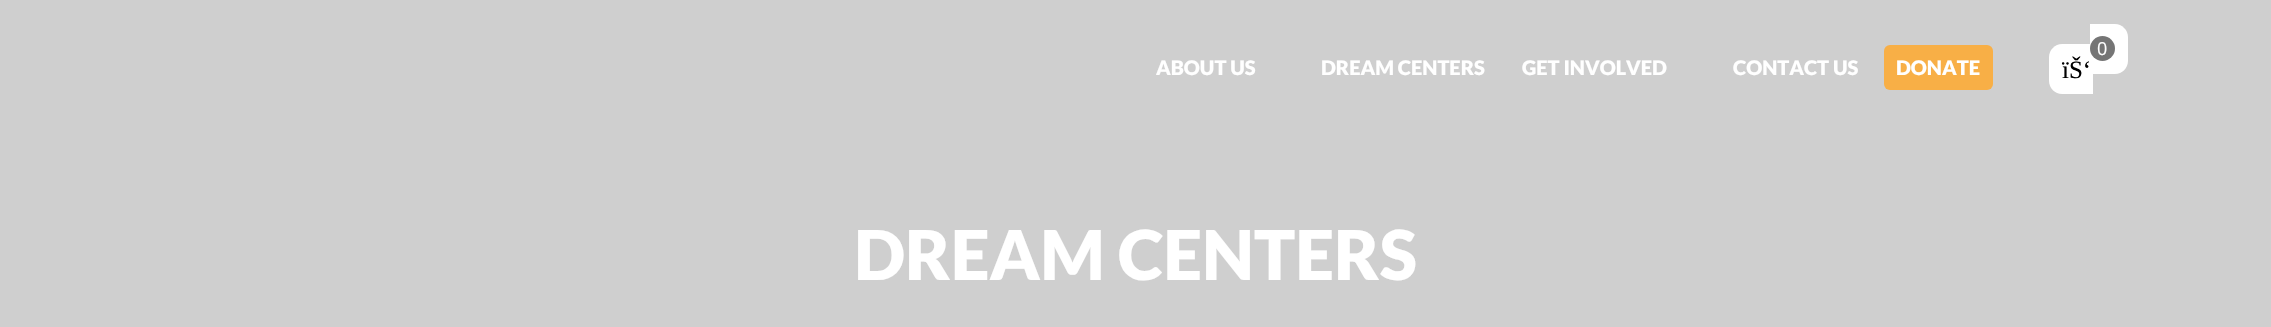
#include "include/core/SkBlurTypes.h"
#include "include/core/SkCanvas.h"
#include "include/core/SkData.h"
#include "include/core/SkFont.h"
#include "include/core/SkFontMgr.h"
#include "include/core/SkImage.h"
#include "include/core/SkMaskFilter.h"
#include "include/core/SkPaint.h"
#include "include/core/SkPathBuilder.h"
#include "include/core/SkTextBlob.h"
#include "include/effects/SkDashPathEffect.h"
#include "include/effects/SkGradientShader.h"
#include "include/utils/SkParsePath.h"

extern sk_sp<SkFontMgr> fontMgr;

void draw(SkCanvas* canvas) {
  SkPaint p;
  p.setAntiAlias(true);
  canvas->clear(SkColorSetRGB(207, 207, 207));
  p.setColor(SkColorSetRGB(248, 175, 70));
  canvas->drawRoundRect(SkRect::MakeLTRB(1884, 45, 1993, 90), 6, 6, p);
  p.setColor(SK_ColorWHITE);
  canvas->drawPath(SkPathBuilder().moveTo(2062, 44).lineTo(2093, 44).lineTo(2093, 94).lineTo(2062, 94).cubicTo(2055, 94, 2049, 88, 2049, 81).lineTo(2049, 57).cubicTo(2049, 50, 2055, 44, 2062, 44).close().detach(), p);
  canvas->drawPath(SkPathBuilder().moveTo(2090, 24).lineTo(2115, 24).cubicTo(2122, 24, 2128, 30, 2128, 37).lineTo(2128, 61).cubicTo(2128, 68, 2122, 74, 2115, 74).lineTo(2090, 74).close().detach(), p);
  p.setColor(SkColorSetRGB(117, 117, 117));
  canvas->drawCircle(2102.5f, 48.5f, 12.5f, p);
  SkFont font1(fontMgr->matchFamilyStyle("Lato", SkFontStyle(900, SkFontStyle::kNormal_Width, SkFontStyle::kUpright_Slant)), 20);
  font1.setSubpixel(true);
  p.setColor(SK_ColorWHITE);
  canvas->drawString("ABOUT US", 1156, 75, font1, p);
  canvas->drawString("DREAM CENTERS", 1321, 75, font1, p);
  canvas->drawString("GET INVOLVED", 1522, 75, font1, p);
  canvas->drawString("CONTACT US", 1733, 75, font1, p);
  canvas->drawString("DONATE", 1896, 75, font1, p);
  SkFont font2(fontMgr->matchFamilyStyle("Open Sans", SkFontStyle::Normal()), 18);
  font2.setSubpixel(true);
  canvas->drawString("0", 2097, 55, font2, p);
  SkFont font3(fontMgr->matchFamilyStyle("Liberation Serif", SkFontStyle::Normal()), 25);
  font3.setSubpixel(true);
  p.setColor(SK_ColorBLACK);
  canvas->drawString("ïŠ‘", 2062, 78, font3, p);
  SkFont font4(fontMgr->matchFamilyStyle("Lato", SkFontStyle(900, SkFontStyle::kNormal_Width, SkFontStyle::kUpright_Slant)), 68.75f);
  font4.setSubpixel(true);
  p.setColor(SK_ColorWHITE);
  canvas->drawString("DREAM CENTERS", 854, 280, font4, p);
}
